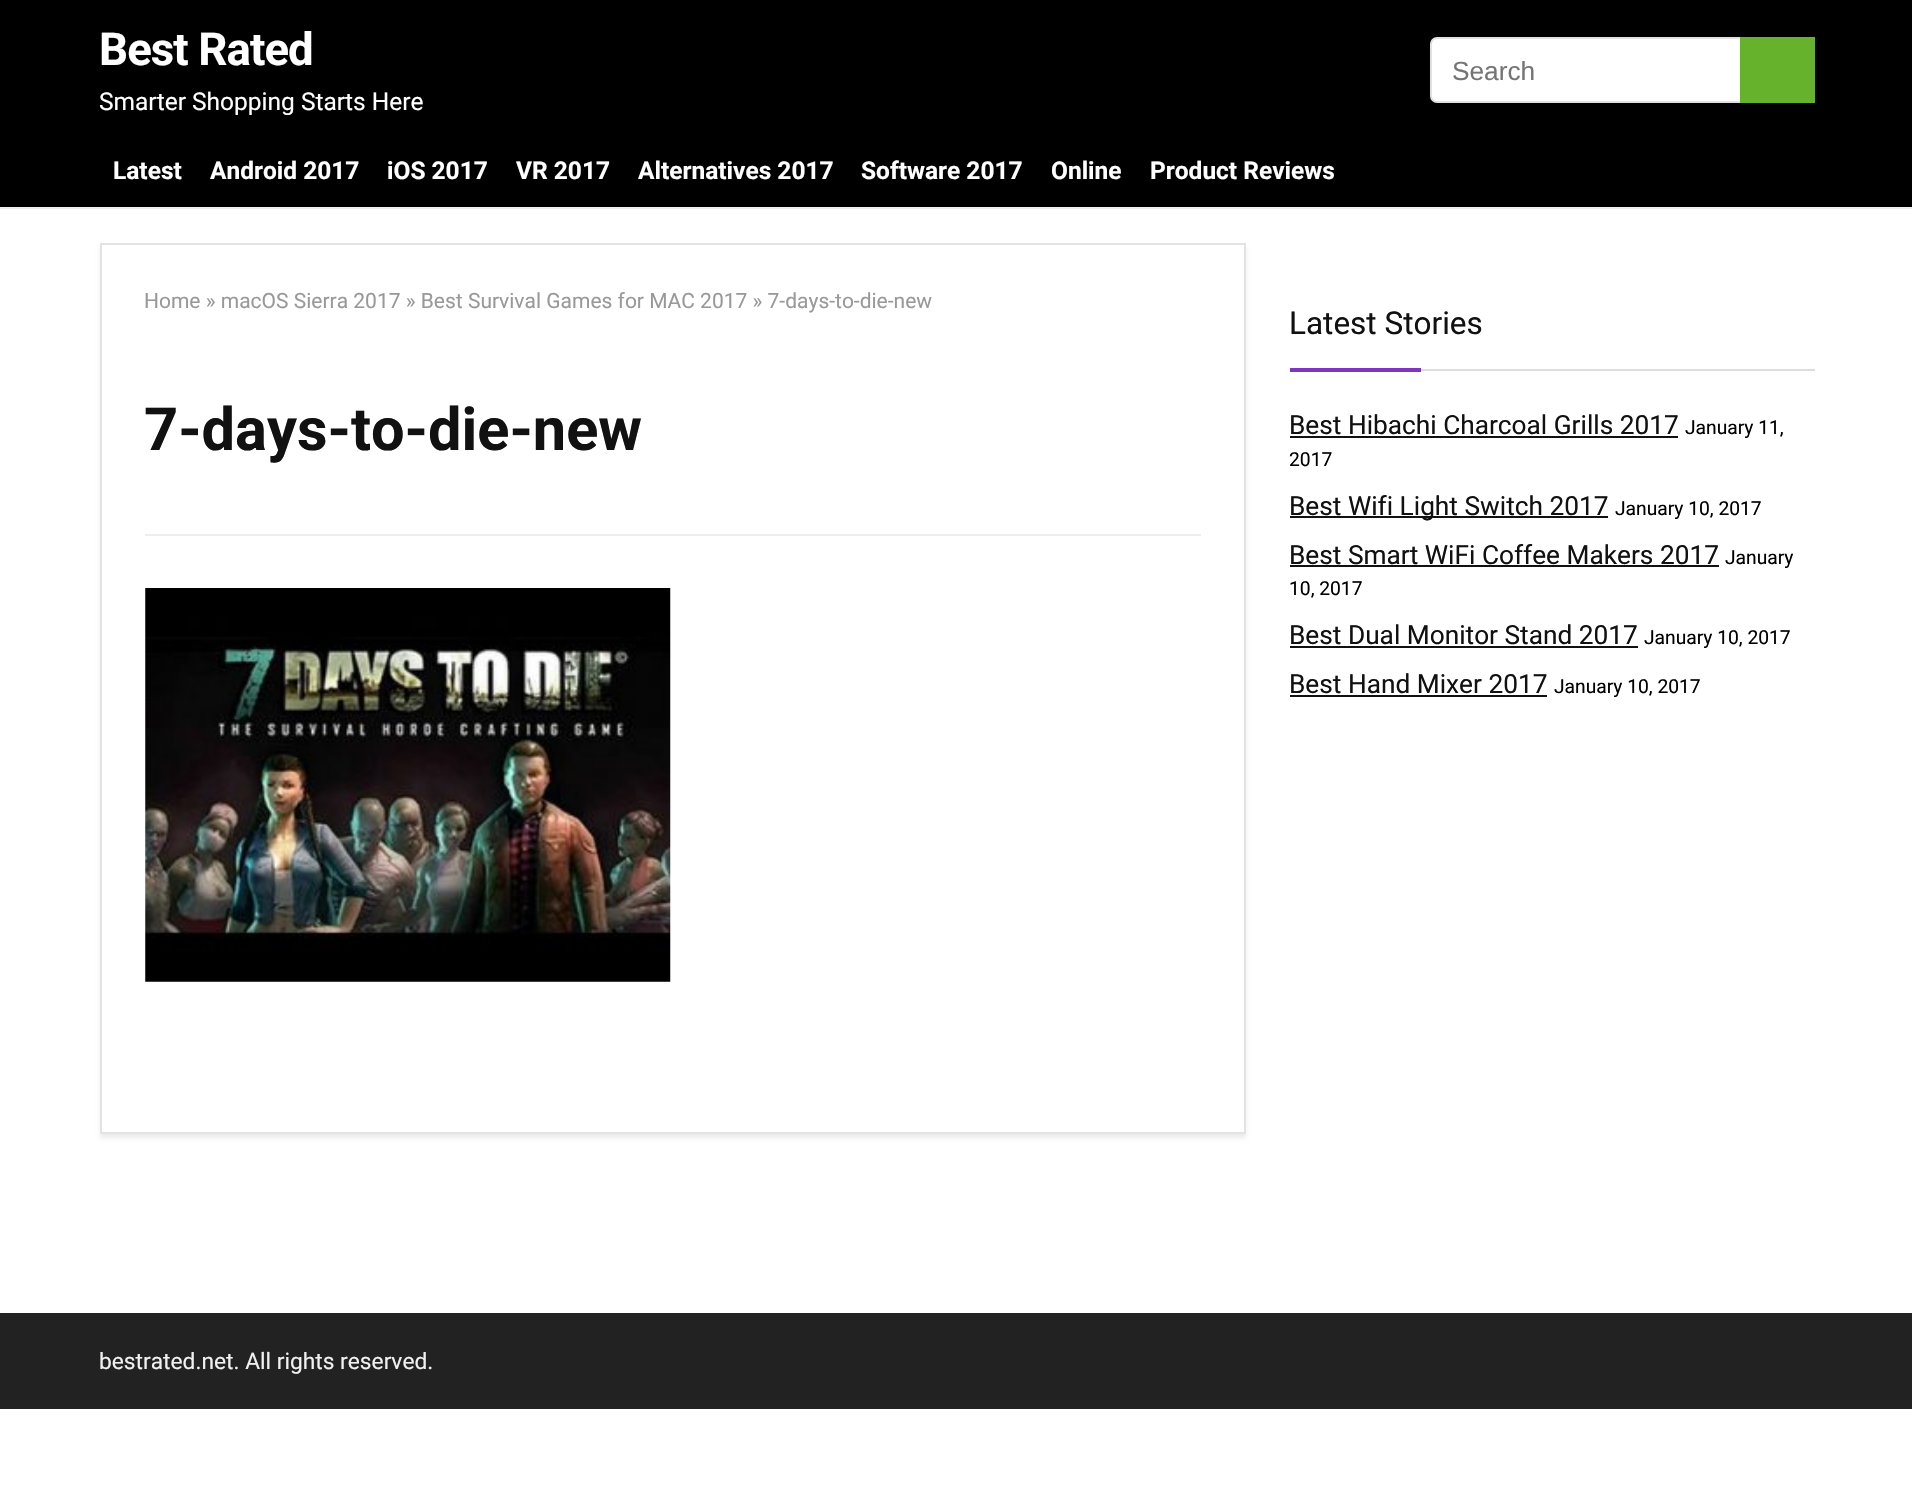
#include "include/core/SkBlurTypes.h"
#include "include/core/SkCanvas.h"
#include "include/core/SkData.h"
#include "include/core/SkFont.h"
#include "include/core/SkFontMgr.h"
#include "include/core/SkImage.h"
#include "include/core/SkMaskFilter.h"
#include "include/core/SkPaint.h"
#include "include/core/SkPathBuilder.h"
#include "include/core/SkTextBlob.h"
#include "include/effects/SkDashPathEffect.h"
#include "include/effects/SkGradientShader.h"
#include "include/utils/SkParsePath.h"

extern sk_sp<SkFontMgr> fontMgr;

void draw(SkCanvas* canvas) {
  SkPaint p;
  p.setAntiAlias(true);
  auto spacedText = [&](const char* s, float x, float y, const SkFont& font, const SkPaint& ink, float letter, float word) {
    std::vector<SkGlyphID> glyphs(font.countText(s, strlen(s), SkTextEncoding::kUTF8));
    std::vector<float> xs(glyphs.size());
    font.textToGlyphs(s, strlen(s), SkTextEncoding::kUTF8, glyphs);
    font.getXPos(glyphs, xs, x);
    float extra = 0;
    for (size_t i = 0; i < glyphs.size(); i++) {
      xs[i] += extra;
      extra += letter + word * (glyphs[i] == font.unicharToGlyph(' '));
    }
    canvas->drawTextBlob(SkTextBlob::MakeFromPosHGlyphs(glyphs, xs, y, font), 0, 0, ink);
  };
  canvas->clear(SK_ColorWHITE);
  p.setColor(SK_ColorBLACK);
  canvas->drawRect(SkRect::MakeLTRB(0, 0, 1912, 207), p);
  p.setColor(SK_ColorWHITE);
  canvas->drawRoundRect(SkRect::MakeLTRB(1431, 38, 1814, 102), 6, 6, p);
  p.setStyle(SkPaint::kStroke_Style);
  p.setStrokeWidth(2);
  p.setColor(SkColorSetRGB(225, 225, 225));
  canvas->drawRoundRect(SkRect::MakeLTRB(1431, 38, 1814, 102), 6, 6, p);
  p.setStyle(SkPaint::kFill_Style);
  p.setColor(SkColorSetRGB(102, 178, 44));
  canvas->drawRect(SkRect::MakeLTRB(1740, 37, 1815, 103), p);
  p.setColor(SkColorSetRGB(238, 238, 238));
  canvas->drawRect(SkRect::MakeLTRB(0, 207, 1912, 209), p);
  canvas->save();
  canvas->clipPath(SkPathBuilder(SkPathFillType::kEvenOdd).moveTo(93, 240).lineTo(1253, 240).lineTo(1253, 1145).lineTo(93, 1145).close().moveTo(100, 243).lineTo(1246, 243).lineTo(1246, 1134).lineTo(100, 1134).close().detach(), true);
  p.setColor(SkColorSetRGB(236, 236, 236));
  p.setMaskFilter(SkMaskFilter::MakeBlur(kNormal_SkBlurStyle, 2));
  canvas->drawRect(SkRect::MakeLTRB(100, 247, 1246, 1138), p);
  p.setMaskFilter(nullptr);
  canvas->restore();
  p.setStyle(SkPaint::kStroke_Style);
  p.setColor(SkColorSetRGB(227, 227, 227));
  canvas->drawRect(SkRect::MakeLTRB(101, 244, 1245, 1133), p);
  p.setStyle(SkPaint::kFill_Style);
  p.setColor(SkColorSetRGB(238, 238, 238));
  canvas->drawRect(SkRect::MakeLTRB(145, 534, 1201, 536), p);
  canvas->drawImageRect(SkImages::DeferredFromEncodedData(SkData::MakeFromFileName("images/1.png")), SkRect::MakeLTRB(145, 588, 671, 982), SkSamplingOptions());
  p.setColor(SkColorSetRGB(221, 221, 221));
  canvas->drawRect(SkRect::MakeLTRB(1421, 369, 1815, 371), p);
  p.setColor(SkColorSetRGB(128, 53, 190));
  canvas->drawRect(SkRect::MakeLTRB(1290, 368, 1421, 372), p);
  p.setColor(SkColorSetRGB(17, 17, 17));
  canvas->drawRect(SkRect::MakeLTRB(1290, 436, 1678, 438), p);
  canvas->drawRect(SkRect::MakeLTRB(1290, 516, 1608, 518), p);
  canvas->drawRect(SkRect::MakeLTRB(1290, 565, 1719, 567), p);
  canvas->drawRect(SkRect::MakeLTRB(1290, 646, 1638, 648), p);
  canvas->drawRect(SkRect::MakeLTRB(1290, 695, 1547, 697), p);
  p.setColor(SkColorSetRGB(34, 34, 34));
  canvas->drawRect(SkRect::MakeLTRB(0, 1313, 1912, 1409), p);
  SkFont font1(fontMgr->matchFamilyStyle("Roboto", SkFontStyle::Bold()), 45.5f);
  font1.setSubpixel(true);
  p.setColor(SK_ColorWHITE);
  spacedText("Best Rated", 99, 65, font1, p, -0.9f, 0);
  SkFont font2(fontMgr->matchFamilyStyle("Roboto", SkFontStyle::Normal()), 24.5f);
  font2.setSubpixel(true);
  canvas->drawString("Smarter Shopping Starts Here", 99, 110, font2, p);
  SkFont font3(fontMgr->matchFamilyStyle("Liberation Sans", SkFontStyle::Normal()), 26.25f);
  font3.setSubpixel(true);
  p.setColor(SkColorSetRGB(117, 117, 117));
  canvas->drawString("Search", 1452, 80, font3, p);
  SkFont font4(fontMgr->matchFamilyStyle("Roboto", SkFontStyle::Bold()), 24.5f);
  font4.setSubpixel(true);
  p.setColor(SK_ColorWHITE);
  canvas->drawString("Latest", 113, 179, font4, p);
  canvas->drawString("Android 2017", 210, 179, font4, p);
  canvas->drawString("iOS 2017", 387, 179, font4, p);
  canvas->drawString("VR 2017", 516, 179, font4, p);
  canvas->drawString("Alternatives 2017", 638, 179, font4, p);
  canvas->drawString("Software 2017", 861, 179, font4, p);
  canvas->drawString("Online", 1051, 179, font4, p);
  canvas->drawString("Product Reviews", 1150, 179, font4, p);
  SkFont font5(fontMgr->matchFamilyStyle("Roboto", SkFontStyle::Normal()), 21);
  font5.setSubpixel(true);
  p.setColor(SkColorSetRGB(153, 153, 153));
  canvas->drawString("Home » macOS Sierra 2017 » Best Survival Games for MAC 2017 » 7-days-to-die-new", 144, 308, font5, p);
  SkFont font6(fontMgr->matchFamilyStyle("Roboto", SkFontStyle::Bold()), 59.5f);
  font6.setSubpixel(true);
  p.setColor(SkColorSetRGB(17, 17, 17));
  canvas->drawString("7-days-to-die-new", 144, 450, font6, p);
  SkFont font7(fontMgr->matchFamilyStyle("Roboto", SkFontStyle::Normal()), 31.5f);
  font7.setSubpixel(true);
  canvas->drawString("Latest Stories", 1289, 334, font7, p);
  SkFont font8(fontMgr->matchFamilyStyle("Roboto", SkFontStyle::Normal()), 26.25f);
  font8.setSubpixel(true);
  canvas->drawString("Best Hibachi Charcoal Grills 2017", 1289, 434, font8, p);
  SkFont font9(fontMgr->matchFamilyStyle("Roboto", SkFontStyle::Normal()), 19.25f);
  font9.setSubpixel(true);
  p.setColor(SK_ColorBLACK);
  canvas->drawString("January 11,", 1685, 434, font9, p);
  canvas->drawString("2017", 1289, 466, font9, p);
  p.setColor(SkColorSetRGB(17, 17, 17));
  canvas->drawString("Best Wifi Light Switch 2017", 1289, 515, font8, p);
  p.setColor(SK_ColorBLACK);
  canvas->drawString("January 10, 2017", 1615, 515, font9, p);
  p.setColor(SkColorSetRGB(17, 17, 17));
  canvas->drawString("Best Smart WiFi Coffee Makers 2017", 1289, 564, font8, p);
  p.setColor(SK_ColorBLACK);
  canvas->drawString("January", 1725, 564, font9, p);
  canvas->drawString("10, 2017", 1289, 595, font9, p);
  p.setColor(SkColorSetRGB(17, 17, 17));
  canvas->drawString("Best Dual Monitor Stand 2017", 1289, 644, font8, p);
  p.setColor(SK_ColorBLACK);
  canvas->drawString("January 10, 2017", 1644, 644, font9, p);
  p.setColor(SkColorSetRGB(17, 17, 17));
  canvas->drawString("Best Hand Mixer 2017", 1289, 693, font8, p);
  p.setColor(SK_ColorBLACK);
  canvas->drawString("January 10, 2017", 1554, 693, font9, p);
  SkFont font10(fontMgr->matchFamilyStyle("Roboto", SkFontStyle::Normal()), 22.75f);
  font10.setSubpixel(true);
  p.setColor(SkColorSetRGB(241, 241, 241));
  canvas->drawString("bestrated.net. All rights reserved.", 99, 1369, font10, p);
}
